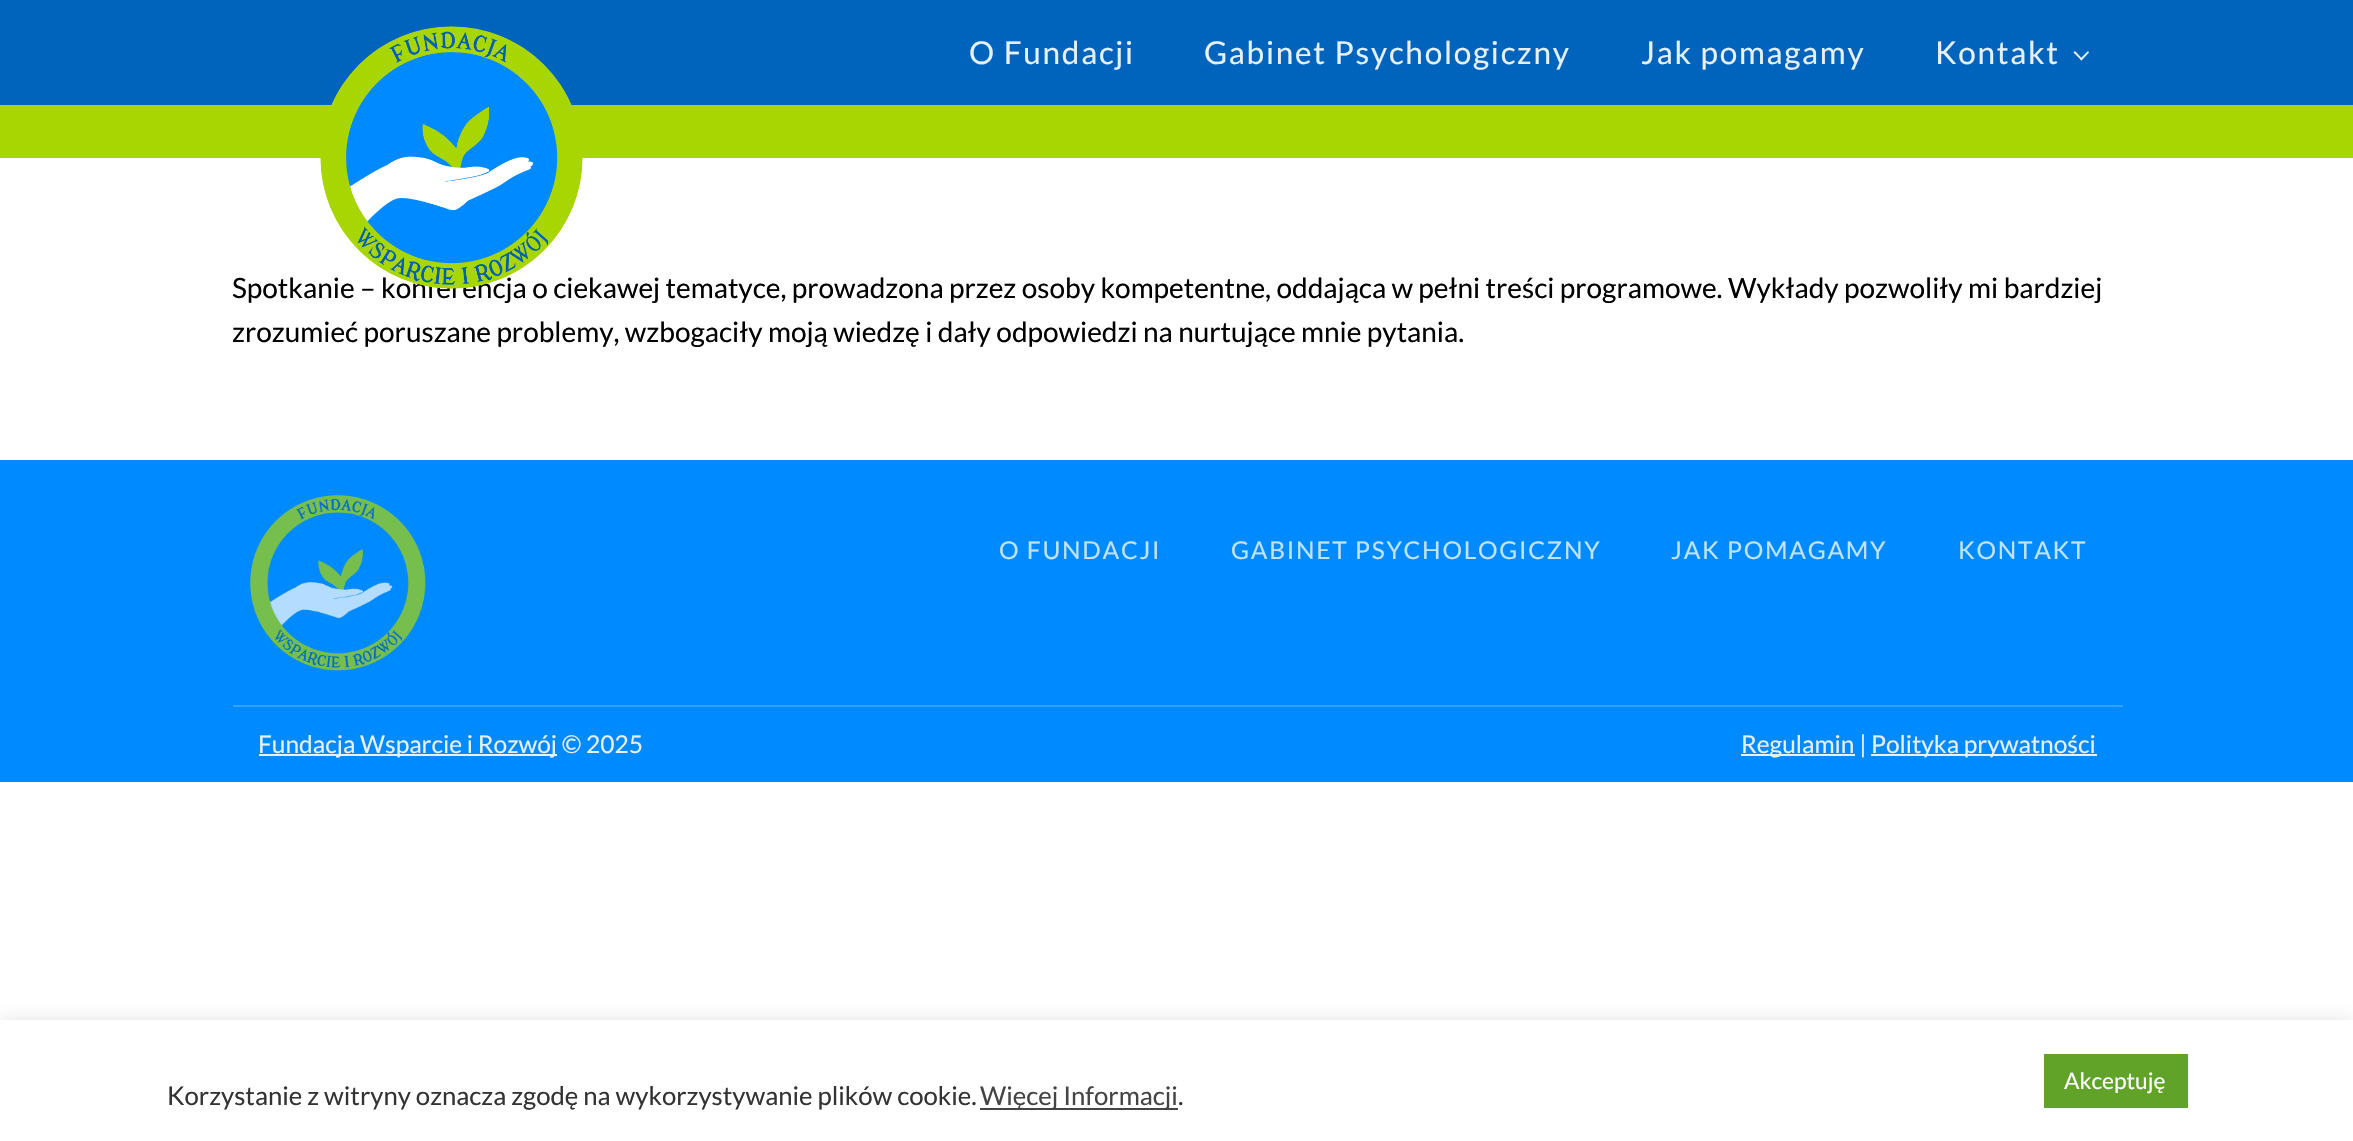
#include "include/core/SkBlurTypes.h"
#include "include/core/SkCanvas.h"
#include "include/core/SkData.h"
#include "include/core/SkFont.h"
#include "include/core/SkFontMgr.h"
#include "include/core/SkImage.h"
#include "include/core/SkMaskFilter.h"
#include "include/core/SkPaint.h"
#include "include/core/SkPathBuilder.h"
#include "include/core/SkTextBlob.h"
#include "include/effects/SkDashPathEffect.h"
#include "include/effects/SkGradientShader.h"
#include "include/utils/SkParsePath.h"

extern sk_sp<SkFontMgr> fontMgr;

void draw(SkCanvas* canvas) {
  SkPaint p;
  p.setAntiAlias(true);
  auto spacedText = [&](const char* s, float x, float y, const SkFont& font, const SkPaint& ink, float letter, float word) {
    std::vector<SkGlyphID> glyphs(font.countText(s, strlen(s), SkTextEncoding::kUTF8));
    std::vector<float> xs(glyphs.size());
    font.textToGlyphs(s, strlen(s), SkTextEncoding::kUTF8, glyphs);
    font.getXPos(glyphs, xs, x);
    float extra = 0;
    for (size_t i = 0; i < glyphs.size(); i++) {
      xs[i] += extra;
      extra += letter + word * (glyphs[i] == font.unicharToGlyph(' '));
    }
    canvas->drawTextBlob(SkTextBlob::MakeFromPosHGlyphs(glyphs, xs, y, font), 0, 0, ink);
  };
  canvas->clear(SK_ColorWHITE);
  p.setColor(SkColorSetRGB(0, 100, 188));
  canvas->drawRect(SkRect::MakeLTRB(0, 0, 2353, 105), p);
  p.setColor(SkColorSetRGB(230, 240, 250));
  canvas->drawPath(SkPathBuilder().moveTo(2089, 52.5f).lineTo(2081.5f, 60.5f).lineTo(2080, 59).lineTo(2088, 51).close().detach(), p);
  canvas->drawPath(SkPathBuilder().moveTo(2082.5f, 59).lineTo(2081.5f, 60.5f).lineTo(2073.5f, 52.5f).lineTo(2075, 51).close().detach(), p);
  p.setColor(SkColorSetRGB(168, 214, 3));
  canvas->drawRect(SkRect::MakeLTRB(0, 105, 2353, 158), p);
  p.setColor(SkColorSetRGB(0, 138, 255));
  canvas->drawRect(SkRect::MakeLTRB(0, 460, 2353, 782), p);
  canvas->drawImageRect(SkImages::DeferredFromEncodedData(SkData::MakeFromFileName("images/2.png")), SkRect::MakeLTRB(250, 495, 426, 671), SkSamplingOptions());
  p.setColor(SkColorSetRGB(51, 161, 255));
  canvas->drawRect(SkRect::MakeLTRB(233, 705, 2123, 707), p);
  p.setColor(SkColorSetRGB(230, 240, 250));
  canvas->drawRect(SkRect::MakeLTRB(259, 754, 557, 756), p);
  canvas->drawRect(SkRect::MakeLTRB(1741, 754, 1855, 756), p);
  canvas->drawRect(SkRect::MakeLTRB(1871, 754, 2097, 756), p);
  p.setColor(SkColorSetARGB(77, 172, 171, 171));
  p.setMaskFilter(SkMaskFilter::MakeBlur(kNormal_SkBlurStyle, 9));
  canvas->drawRect(SkRect::MakeLTRB(0, 1019, 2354, 1139), p);
  p.setMaskFilter(nullptr);
  p.setColor(SK_ColorWHITE);
  canvas->drawRect(SkRect::MakeLTRB(0, 1020, 2353, 1141), p);
  p.setColor(SkColorSetRGB(97, 162, 41));
  canvas->drawRect(SkRect::MakeLTRB(2044, 1054, 2188, 1108), p);
  p.setColor(SkColorSetRGB(68, 68, 68));
  canvas->drawRect(SkRect::MakeLTRB(980, 1108, 1178, 1110), p);
  SkFont font1(fontMgr->matchFamilyStyle("Lato", SkFontStyle::Normal()), 31.5f);
  font1.setSubpixel(true);
  p.setColor(SkColorSetRGB(230, 240, 250));
  spacedText("O Fundacji", 969, 64, font1, p, 1.75f, 0);
  spacedText("Gabinet Psychologiczny", 1204, 64, font1, p, 1.75f, 0);
  spacedText("Jak pomagamy", 1641, 64, font1, p, 1.75f, 0);
  spacedText("Kontakt", 1935, 64, font1, p, 1.75f, 0);
  SkFont font2(fontMgr->matchFamilyStyle("Lato", SkFontStyle::Normal()), 28);
  font2.setSubpixel(true);
  p.setColor(SK_ColorBLACK);
  canvas->drawString("Spotkanie – konferencja o ciekawej tematyce, prowadzona przez osoby kompetentne, oddająca w pełni treści programowe. Wykłady pozwoliły mi bardziej", 232, 298, font2, p);
  canvas->drawImageRect(SkImages::DeferredFromEncodedData(SkData::MakeFromFileName("images/1.png")), SkRect::MakeLTRB(320, 26, 583, 289), SkSamplingOptions());
  canvas->drawString("zrozumieć poruszane problemy, wzbogaciły moją wiedzę i dały odpowiedzi na nurtujące mnie pytania.", 232, 342, font2, p);
  SkFont font3(fontMgr->matchFamilyStyle("Lato", SkFontStyle::Normal()), 24.5f);
  font3.setSubpixel(true);
  p.setColor(SkColorSetRGB(191, 226, 255));
  spacedText("O FUNDACJI", 999, 559, font3, p, 1.75f, 0);
  spacedText("GABINET PSYCHOLOGICZNY", 1231, 559, font3, p, 1.75f, 0);
  spacedText("JAK POMAGAMY", 1671, 559, font3, p, 1.75f, 0);
  spacedText("KONTAKT", 1958, 559, font3, p, 1.75f, 0);
  p.setColor(SkColorSetRGB(230, 240, 250));
  canvas->drawString("Fundacja Wsparcie i Rozwój © 2025", 258, 753, font3, p);
  canvas->drawString("Regulamin |", 1741, 753, font3, p);
  canvas->drawString("Polityka prywatności", 1871, 753, font3, p);
  SkFont font4(fontMgr->matchFamilyStyle("Lato", SkFontStyle::Normal()), 22.75f);
  font4.setSubpixel(true);
  p.setColor(SK_ColorWHITE);
  canvas->drawString("Akceptuję", 2064, 1089, font4, p);
  SkFont font5(fontMgr->matchFamilyStyle("Lato", SkFontStyle::Normal()), 25.7f);
  font5.setSubpixel(true);
  p.setColor(SkColorSetRGB(51, 51, 51));
  canvas->drawString("Korzystanie z witryny oznacza zgodę na wykorzystywanie plików cookie.", 167, 1105, font5, p);
  p.setColor(SkColorSetRGB(68, 68, 68));
  canvas->drawString("Więcej Informacji", 980, 1105, font5, p);
  p.setColor(SkColorSetRGB(51, 51, 51));
  canvas->drawString(".", 1178, 1105, font5, p);
}
